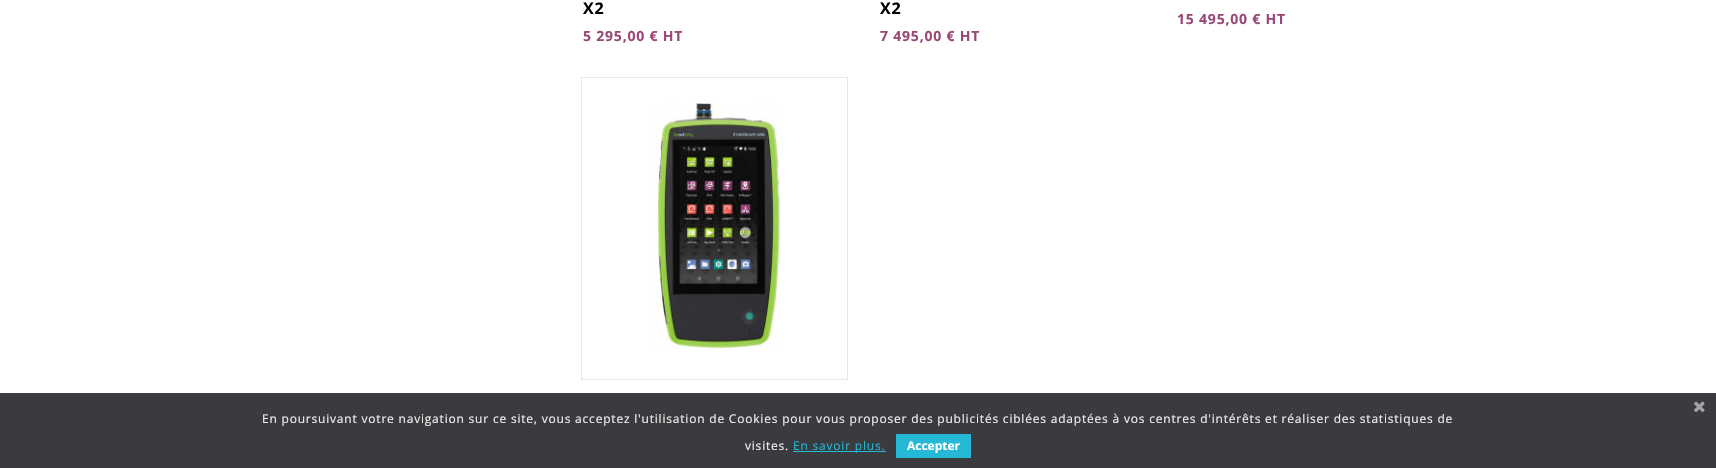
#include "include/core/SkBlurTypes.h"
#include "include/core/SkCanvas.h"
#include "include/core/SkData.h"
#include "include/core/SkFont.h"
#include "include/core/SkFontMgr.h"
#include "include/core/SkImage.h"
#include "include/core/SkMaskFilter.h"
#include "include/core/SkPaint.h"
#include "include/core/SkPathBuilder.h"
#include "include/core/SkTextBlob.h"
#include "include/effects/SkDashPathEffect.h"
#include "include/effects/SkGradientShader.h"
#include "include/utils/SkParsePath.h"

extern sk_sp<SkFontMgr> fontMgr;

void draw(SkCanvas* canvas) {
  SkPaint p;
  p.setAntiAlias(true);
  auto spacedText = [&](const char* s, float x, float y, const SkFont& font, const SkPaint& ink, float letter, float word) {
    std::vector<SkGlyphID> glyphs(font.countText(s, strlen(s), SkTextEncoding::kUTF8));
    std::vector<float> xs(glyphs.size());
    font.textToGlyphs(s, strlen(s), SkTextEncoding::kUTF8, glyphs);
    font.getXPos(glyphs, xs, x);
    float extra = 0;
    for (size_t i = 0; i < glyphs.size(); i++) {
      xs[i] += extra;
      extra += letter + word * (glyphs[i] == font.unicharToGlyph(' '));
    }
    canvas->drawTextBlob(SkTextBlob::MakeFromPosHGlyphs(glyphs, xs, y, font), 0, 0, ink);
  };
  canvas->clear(SK_ColorWHITE);
  p.setStyle(SkPaint::kStroke_Style);
  p.setStrokeWidth(1);
  p.setColor(SkColorSetRGB(232, 231, 222));
  canvas->drawRect(SkRect::MakeLTRB(581.5f, 77.5f, 847.5f, 379.5f), p);
  canvas->drawImageRect(SkImages::DeferredFromEncodedData(SkData::MakeFromFileName("images/1.png")), SkRect::MakeLTRB(651, 101, 782, 349), SkSamplingOptions());
  p.setStyle(SkPaint::kFill_Style);
  p.setColor(SkColorSetARGB(217, 23, 25, 28));
  canvas->drawRect(SkRect::MakeLTRB(0, 393, 1716, 468), p);
  canvas->drawImageRect(SkImages::DeferredFromEncodedData(SkData::MakeFromFileName("images/2.png")), SkRect::MakeLTRB(1694, 401, 1705, 413), SkSamplingOptions());
  p.setColor(SkColorSetRGB(37, 185, 215));
  canvas->drawRect(SkRect::MakeLTRB(793, 451, 886, 452), p);
  canvas->drawRect(SkRect::MakeLTRB(896, 434, 971, 458), p);
  SkFont font1(fontMgr->matchFamilyStyle("Open Sans", SkFontStyle::Bold()), 16);
  font1.setSubpixel(true);
  p.setColor(SK_ColorBLACK);
  spacedText("X2", 583, 14, font1, p, 0.8f, 0);
  SkFont font2(fontMgr->matchFamilyStyle("Open Sans", SkFontStyle::Bold()), 14);
  font2.setSubpixel(true);
  p.setColor(SkColorSetRGB(153, 72, 120));
  spacedText("5 295,00 € HT", 583, 41, font2, p, 0.8f, 0);
  p.setColor(SK_ColorBLACK);
  spacedText("X2", 880, 14, font1, p, 0.8f, 0);
  p.setColor(SkColorSetRGB(153, 72, 120));
  spacedText("7 495,00 € HT", 880, 41, font2, p, 0.8f, 0);
  spacedText("15 495,00 € HT", 1177, 24, font2, p, 0.8f, 0);
  SkFont font3(fontMgr->matchFamilyStyle("Open Sans", SkFontStyle::Normal()), 12);
  font3.setSubpixel(true);
  p.setColor(SkColorSetRGB(239, 239, 239));
  spacedText("En poursuivant votre navigation sur ce site, vous acceptez l'utilisation de Cookies pour vous proposer des publicités ciblées adaptées à vos centres d'intérêts et réaliser des statistiques de", 262, 423, font3, p, 0.8f, 0);
  spacedText("visites.", 745, 450, font3, p, 0.8f, 0);
  p.setColor(SkColorSetRGB(37, 185, 215));
  spacedText("En savoir plus.", 793, 450, font3, p, 0.8f, 0);
  SkFont font4(fontMgr->matchFamilyStyle("Open Sans", SkFontStyle::Bold()), 12);
  font4.setSubpixel(true);
  p.setColor(SK_ColorWHITE);
  canvas->drawString("Accepter", 907, 450, font4, p);
}
